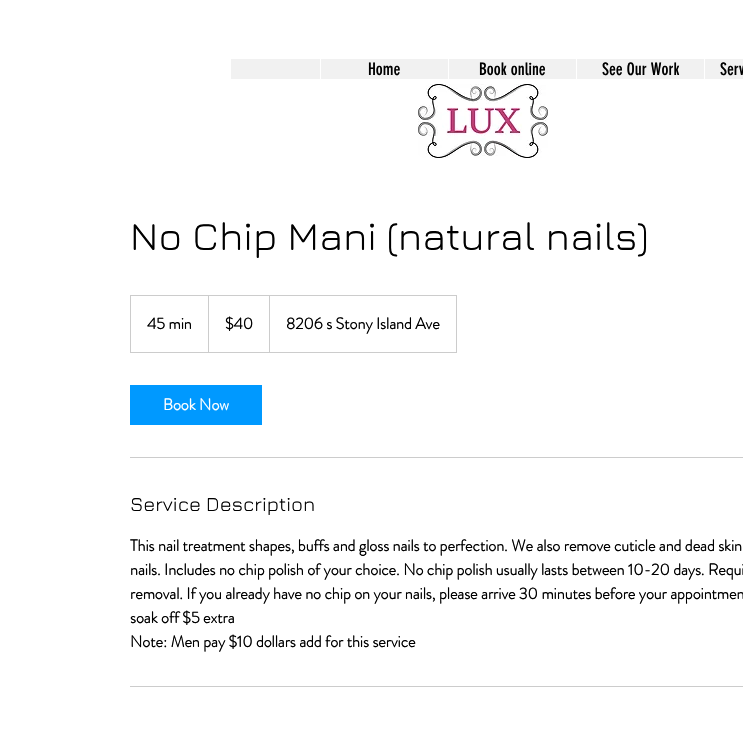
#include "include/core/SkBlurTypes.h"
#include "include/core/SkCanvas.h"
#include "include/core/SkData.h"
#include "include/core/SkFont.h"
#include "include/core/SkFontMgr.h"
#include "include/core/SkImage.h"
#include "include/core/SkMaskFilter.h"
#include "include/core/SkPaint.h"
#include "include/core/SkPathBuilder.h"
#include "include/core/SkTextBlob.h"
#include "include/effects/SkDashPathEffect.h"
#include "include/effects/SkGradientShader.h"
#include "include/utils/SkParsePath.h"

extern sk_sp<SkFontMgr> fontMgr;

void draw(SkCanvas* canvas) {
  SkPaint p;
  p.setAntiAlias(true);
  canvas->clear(SK_ColorWHITE);
  p.setColor(SkColorSetRGB(241, 241, 241));
  canvas->drawRect(SkRect::MakeLTRB(231, 59, 743, 79), p);
  p.setColor(SK_ColorWHITE);
  canvas->drawRect(SkRect::MakeLTRB(320, 59, 321, 79), p);
  canvas->drawRect(SkRect::MakeLTRB(448, 59, 449, 79), p);
  canvas->drawRect(SkRect::MakeLTRB(576, 59, 577, 79), p);
  canvas->drawRect(SkRect::MakeLTRB(704, 59, 705, 79), p);
  canvas->drawImageRect(SkImages::DeferredFromEncodedData(SkData::MakeFromFileName("images/1.png")), SkRect::MakeLTRB(418, 84, 548, 158), SkSamplingOptions());
  p.setStyle(SkPaint::kStroke_Style);
  p.setStrokeWidth(1);
  p.setColor(SkColorSetRGB(204, 204, 204));
  canvas->drawRect(SkRect::MakeLTRB(130.5f, 295.5f, 456.5f, 352.5f), p);
  p.setStyle(SkPaint::kFill_Style);
  canvas->drawPath(SkPathBuilder().moveTo(208, 352).lineTo(208, 295).lineTo(209, 296).lineTo(209, 352).close().detach(), p);
  canvas->drawPath(SkPathBuilder().moveTo(269, 352).lineTo(269, 295).lineTo(270, 296).lineTo(270, 352).close().detach(), p);
  p.setColor(SkColorSetRGB(0, 153, 255));
  canvas->drawRect(SkRect::MakeLTRB(130, 385, 262, 425), p);
  p.setColor(SkColorSetRGB(204, 204, 204));
  canvas->drawRect(SkRect::MakeLTRB(130, 457, 743, 458), p);
  canvas->drawRect(SkRect::MakeLTRB(130, 686, 743, 687), p);
  SkFont font1(fontMgr->matchFamilyStyle("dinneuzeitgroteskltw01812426", SkFontStyle::Normal()), 17);
  font1.setSubpixel(true);
  p.setColor(SK_ColorBLACK);
  canvas->drawString("Home", 368, 75, font1, p);
  canvas->drawString("Book online", 479, 75, font1, p);
  canvas->drawString("See Our Work", 602, 75, font1, p);
  canvas->drawString("Serv", 720, 75, font1, p);
  SkFont font2(fontMgr->matchFamilyStyle("Jura", SkFontStyle::Normal()), 40);
  font2.setSubpixel(true);
  canvas->drawString("No Chip Mani (natural nails)", 130, 250, font2, p);
  SkFont font3(fontMgr->matchFamilyStyle("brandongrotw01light", SkFontStyle::Bold()), 16);
  font3.setSubpixel(true);
  canvas->drawString("45 min", 147, 329, font3, p);
  canvas->drawString("$40", 225, 329, font3, p);
  canvas->drawString("8206 s Stony Island Ave", 286, 329, font3, p);
  p.setColor(SK_ColorWHITE);
  canvas->drawString("Book Now", 163, 410, font3, p);
  SkFont font4(fontMgr->matchFamilyStyle("Jura", SkFontStyle::Normal()), 20);
  font4.setSubpixel(true);
  p.setColor(SK_ColorBLACK);
  canvas->drawString("Service Description", 130, 511, font4, p);
  canvas->drawString("This nail treatment shapes, buffs and gloss nails to perfection. We also remove cuticle and dead skin", 130, 551, font3, p);
  canvas->drawString("nails. Includes no chip polish of your choice. No chip polish usually lasts between 10-20 days. Requi", 130, 575, font3, p);
  canvas->drawString("removal. If you already have no chip on your nails, please arrive 30 minutes before your appointmen", 130, 599, font3, p);
  canvas->drawString("soak off $5 extra", 130, 623, font3, p);
  canvas->drawString("Note: Men pay $10 dollars add for this service", 130, 647, font3, p);
}
